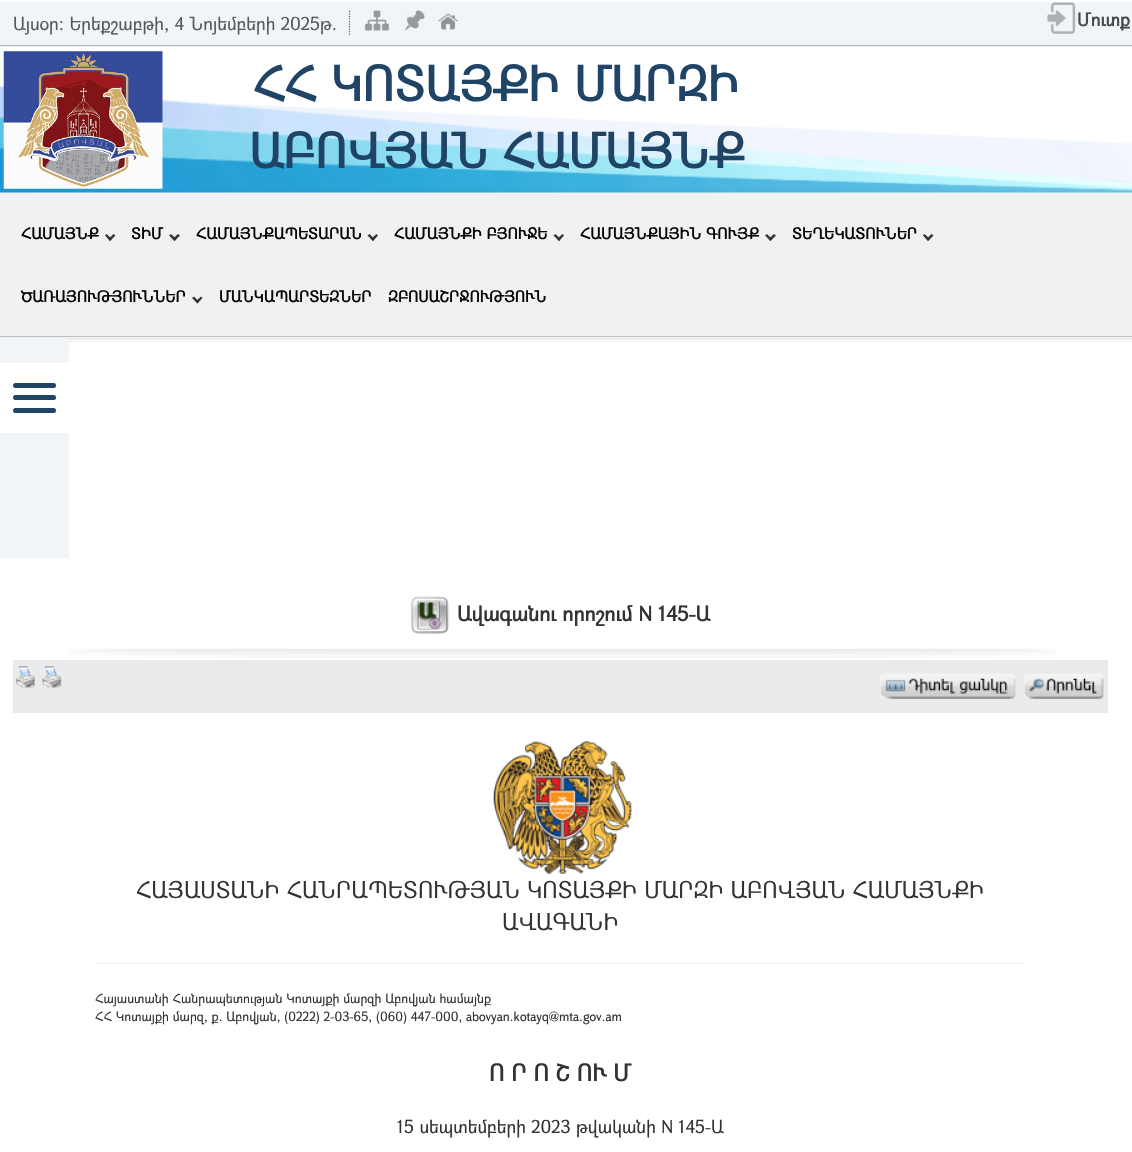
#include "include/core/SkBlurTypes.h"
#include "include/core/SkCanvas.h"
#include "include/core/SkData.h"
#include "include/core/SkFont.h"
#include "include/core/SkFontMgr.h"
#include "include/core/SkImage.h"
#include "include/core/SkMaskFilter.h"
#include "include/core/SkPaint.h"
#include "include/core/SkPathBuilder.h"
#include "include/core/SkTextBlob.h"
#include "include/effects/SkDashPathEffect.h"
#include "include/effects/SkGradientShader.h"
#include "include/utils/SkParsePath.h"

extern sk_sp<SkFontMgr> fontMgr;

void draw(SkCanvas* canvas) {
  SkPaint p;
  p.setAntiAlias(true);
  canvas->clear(SK_ColorWHITE);
  p.setColor(SkColorSetARGB(77, 0, 0, 0));
  p.setMaskFilter(SkMaskFilter::MakeBlur(kNormal_SkBlurStyle, 0.5f));
  canvas->drawRect(SkRect::MakeLTRB(0, 4, 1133, 46), p);
  p.setMaskFilter(nullptr);
  p.setColor(SkColorSetRGB(241, 245, 248));
  canvas->drawRect(SkRect::MakeLTRB(0, 2, 1132, 45), p);
  p.setStyle(SkPaint::kStroke_Style);
  p.setStrokeWidth(1.2f);
  p.setColor(SkColorSetRGB(88, 88, 88));
  p.setPathEffect(SkDashPathEffect::Make({{1.25f, 1.25f}}, 0));
  canvas->drawPath(SkPathBuilder().moveTo(349.5f, 11).lineTo(349.5f, 36).detach(), p);
  p.setPathEffect(nullptr);
  canvas->drawImageRect(SkImages::DeferredFromEncodedData(SkData::MakeFromFileName("images/1.png")), SkRect::MakeLTRB(364, 10, 390, 31), SkSamplingOptions());
  canvas->drawImageRect(SkImages::DeferredFromEncodedData(SkData::MakeFromFileName("images/2.png")), SkRect::MakeLTRB(404, 10, 425, 31), SkSamplingOptions());
  canvas->drawImageRect(SkImages::DeferredFromEncodedData(SkData::MakeFromFileName("images/3.png")), SkRect::MakeLTRB(438, 13, 458, 30), SkSamplingOptions());
  canvas->drawImageRect(SkImages::DeferredFromEncodedData(SkData::MakeFromFileName("images/4.png")), SkRect::MakeLTRB(1047, 2, 1076, 34), SkSamplingOptions());
  canvas->drawImageRect(SkImages::DeferredFromEncodedData(SkData::MakeFromFileName("images/5.png")), SkRect::MakeLTRB(0, 85, 1132, 193), SkSamplingOptions());
  p.setStyle(SkPaint::kFill_Style);
  p.setColor(SkColorSetARGB(38, 2, 3, 3));
  p.setMaskFilter(SkMaskFilter::MakeBlur(kNormal_SkBlurStyle, 2.5f));
  canvas->drawRect(SkRect::MakeLTRB(0, 194, 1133, 339), p);
  p.setMaskFilter(nullptr);
  canvas->drawImageRect(SkImages::DeferredFromEncodedData(SkData::MakeFromFileName("images/6.png")), SkRect::MakeLTRB(3, 51, 163, 189), SkSamplingOptions());
  p.setColor(SkColorSetRGB(240, 241, 243));
  canvas->drawRect(SkRect::MakeLTRB(0, 193, 1132, 338), p);
  p.setColor(SkColorSetRGB(193, 193, 193));
  canvas->drawRect(SkRect::MakeLTRB(0, 336, 1132, 337), p);
  p.setColor(SkColorSetRGB(51, 51, 51));
  canvas->drawPath(SkPathBuilder().moveTo(113.5f, 234).lineTo(115.5f, 235.5f).lineTo(110, 241).lineTo(108.5f, 239).close().detach(), p);
  canvas->drawPath(SkPathBuilder().moveTo(106.5f, 234).lineTo(112, 239).lineTo(110, 241).lineTo(105, 235.5f).close().detach(), p);
  canvas->drawPath(SkPathBuilder().moveTo(178, 234).lineTo(180, 235.5f).lineTo(174.5f, 241).lineTo(172.5f, 239).close().detach(), p);
  canvas->drawPath(SkPathBuilder().moveTo(171, 234).lineTo(176.5f, 239).lineTo(174.5f, 241).lineTo(169, 235.5f).close().detach(), p);
  canvas->drawPath(SkPathBuilder().moveTo(376.5f, 234).lineTo(378, 235.5f).lineTo(373, 241).lineTo(371, 239).close().detach(), p);
  canvas->drawPath(SkPathBuilder().moveTo(369.5f, 234).lineTo(374.5f, 239).lineTo(373, 241).lineTo(367.5f, 235.5f).close().detach(), p);
  canvas->drawPath(SkPathBuilder().moveTo(562.5f, 234).lineTo(564, 235.5f).lineTo(559, 241).lineTo(557, 239).close().detach(), p);
  canvas->drawPath(SkPathBuilder().moveTo(555.5f, 234).lineTo(560.5f, 239).lineTo(559, 241).lineTo(553.5f, 235.5f).close().detach(), p);
  canvas->drawPath(SkPathBuilder().moveTo(774, 234).lineTo(776, 235.5f).lineTo(770.5f, 241).lineTo(768.5f, 239).close().detach(), p);
  canvas->drawPath(SkPathBuilder().moveTo(767, 234).lineTo(772, 239).lineTo(770.5f, 241).lineTo(765, 235.5f).close().detach(), p);
  canvas->drawPath(SkPathBuilder().moveTo(931.5f, 234).lineTo(933.5f, 235.5f).lineTo(928, 241).lineTo(926.5f, 239).close().detach(), p);
  canvas->drawPath(SkPathBuilder().moveTo(924.5f, 234).lineTo(930, 239).lineTo(928, 241).lineTo(923, 235.5f).close().detach(), p);
  canvas->drawPath(SkPathBuilder().moveTo(201, 296.5f).lineTo(202.5f, 298).lineTo(197.5f, 303.5f).lineTo(195.5f, 301.5f).close().detach(), p);
  canvas->drawPath(SkPathBuilder().moveTo(194, 296.5f).lineTo(199, 301.5f).lineTo(197.5f, 303.5f).lineTo(192, 298).close().detach(), p);
  p.setColor(SkColorSetRGB(241, 245, 248));
  canvas->drawRect(SkRect::MakeLTRB(0, 338, 69, 558), p);
  p.setColor(SK_ColorWHITE);
  canvas->drawRect(SkRect::MakeLTRB(0, 363, 69, 433), p);
  p.setColor(SkColorSetRGB(32, 68, 102));
  canvas->drawRoundRect(SkRect::MakeLTRB(13, 395, 56, 400), 2.5f, 2.5f, p);
  canvas->drawRoundRect(SkRect::MakeLTRB(13, 383, 56, 388), 2.5f, 2.5f, p);
  canvas->drawRoundRect(SkRect::MakeLTRB(13, 408, 56, 413), 2.5f, 2.5f, p);
  canvas->drawImageRect(SkImages::DeferredFromEncodedData(SkData::MakeFromFileName("images/7.png")), SkRect::MakeLTRB(69, 648, 1056, 658), SkSamplingOptions());
  canvas->drawImageRect(SkImages::DeferredFromEncodedData(SkData::MakeFromFileName("images/8.png")), SkRect::MakeLTRB(411, 596, 449, 634), SkSamplingOptions());
  p.setColor(SkColorSetRGB(233, 235, 236));
  canvas->drawRect(SkRect::MakeLTRB(13, 660, 1108, 713), p);
  canvas->drawImageRect(SkImages::DeferredFromEncodedData(SkData::MakeFromFileName("images/9.png")), SkRect::MakeLTRB(16, 666, 35, 688), SkSamplingOptions());
  canvas->drawImageRect(SkImages::DeferredFromEncodedData(SkData::MakeFromFileName("images/10.png")), SkRect::MakeLTRB(42, 666, 62, 688), SkSamplingOptions());
  canvas->drawImageRect(SkImages::DeferredFromEncodedData(SkData::MakeFromFileName("images/11.png")), SkRect::MakeLTRB(880, 673, 1016, 699), SkSamplingOptions());
  canvas->drawImageRect(SkImages::DeferredFromEncodedData(SkData::MakeFromFileName("images/12.png")), SkRect::MakeLTRB(1023, 673, 1104, 699), SkSamplingOptions());
  canvas->drawImageRect(SkImages::DeferredFromEncodedData(SkData::MakeFromFileName("images/13.png")), SkRect::MakeLTRB(493, 741, 632, 874), SkSamplingOptions());
  p.setColor(SkColorSetRGB(238, 238, 238));
  canvas->drawRect(SkRect::MakeLTRB(95, 963, 1025, 964), p);
  SkFont font1(fontMgr->matchFamilyStyle("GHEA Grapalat", SkFontStyle::Normal()), 17.5f);
  font1.setSubpixel(true);
  p.setColor(SkColorSetRGB(88, 88, 88));
  canvas->drawString("Այսօր: Երեքշաբթի, 4 Նոյեմբերի 2025թ.", 13, 30, font1, p);
  SkFont font2(fontMgr->matchFamilyStyle("GHEA Grapalat", SkFontStyle::Bold()), 17.5f);
  font2.setSubpixel(true);
  p.setColor(SkColorSetRGB(72, 74, 74));
  canvas->drawString("Մուտք", 1077, 26, font2, p);
  SkFont font3(fontMgr->matchFamilyStyle("GHEA Grapalat", SkFontStyle::Bold()), 46.75f);
  font3.setSubpixel(true);
  p.setColor(SkColorSetRGB(32, 68, 102));
  canvas->drawString("ՀՀ ԿՈՏԱՅՔԻ ՄԱՐԶԻ", 253, 101, font3, p);
  canvas->drawString("ԱԲՈՎՅԱՆ ՀԱՄԱՅՆՔ", 249, 168, font3, p);
  SkFont font4(fontMgr->matchFamilyStyle("GHEA Grapalat", SkFontStyle::Bold()), 15);
  font4.setSubpixel(true);
  p.setColor(SkColorSetRGB(5, 5, 5));
  canvas->drawString("ՀԱՄԱՅՆՔ", 21, 239, font4, p);
  canvas->drawString("ՏԻՄ", 131, 239, font4, p);
  canvas->drawString("ՀԱՄԱՅՆՔԱՊԵՏԱՐԱՆ", 196, 239, font4, p);
  canvas->drawString("ՀԱՄԱՅՆՔԻ ԲՅՈՒՋԵ", 394, 239, font4, p);
  canvas->drawString("ՀԱՄԱՅՆՔԱՅԻՆ ԳՈՒՅՔ", 580, 239, font4, p);
  canvas->drawString("ՏԵՂԵԿԱՏՈՒՆԵՐ", 792, 239, font4, p);
  canvas->drawString("ԾԱՌԱՅՈՒԹՅՈՒՆՆԵՐ", 21, 302, font4, p);
  canvas->drawString("ՄԱՆԿԱՊԱՐՏԵԶՆԵՐ", 219, 302, font4, p);
  canvas->drawString("ԶԲՈՍԱՇՐՋՈՒԹՅՈՒՆ", 388, 302, font4, p);
  SkFont font5(fontMgr->matchFamilyStyle("GHEA Grapalat", SkFontStyle::Bold()), 20);
  font5.setSubpixel(true);
  p.setColor(SkColorSetRGB(51, 51, 51));
  canvas->drawString("Ավագանու որոշում N 145-Ա", 457, 621, font5, p);
  SkFont font6(fontMgr->matchFamilyStyle("GHEA Grapalat", SkFontStyle::Normal()), 22.5f);
  font6.setSubpixel(true);
  canvas->drawString("ՀԱՅԱՍՏԱՆԻ ՀԱՆՐԱՊԵՏՈՒԹՅԱՆ ԿՈՏԱՅՔԻ ՄԱՐԶԻ ԱԲՈՎՅԱՆ ՀԱՄԱՅՆՔԻ", 136, 898, font6, p);
  canvas->drawString("ԱՎԱԳԱՆԻ", 502, 930, font6, p);
  SkFont font7(fontMgr->matchFamilyStyle("GHEA Grapalat", SkFontStyle::Normal()), 12.5f);
  font7.setSubpixel(true);
  canvas->drawString("Հայաստանի Հանրապետության Կոտայքի մարզի Աբովյան համայնք", 95, 1003, font7, p);
  canvas->drawString("ՀՀ Կոտայքի մարզ, ք. Աբովյան, (0222) 2-03-65, (060) 447-000, abovyan.kotayq@mta.gov.am", 95, 1021, font7, p);
  SkFont font8(fontMgr->matchFamilyStyle("GHEA Grapalat", SkFontStyle::Bold()), 22.5f);
  font8.setSubpixel(true);
  canvas->drawString("Ո Ր Ո Շ ՈՒ Մ", 489, 1081, font8, p);
  canvas->drawString("15 սեպտեմբերի 2023 թվականի N 145-Ա", 397, 1133, font1, p);
}
